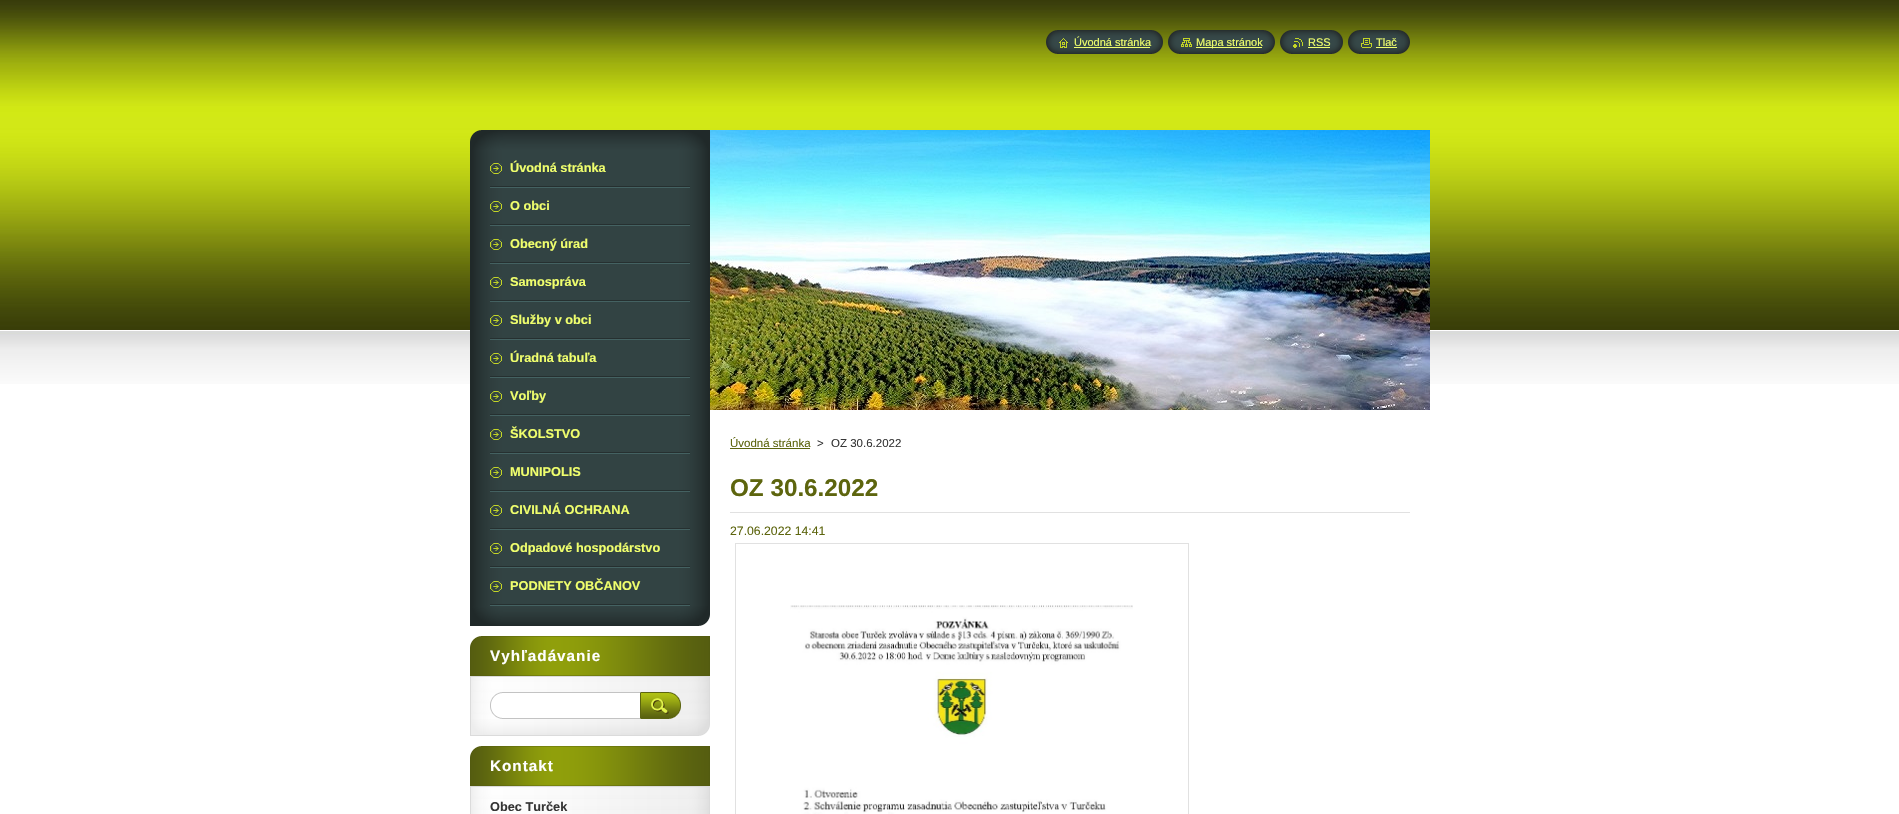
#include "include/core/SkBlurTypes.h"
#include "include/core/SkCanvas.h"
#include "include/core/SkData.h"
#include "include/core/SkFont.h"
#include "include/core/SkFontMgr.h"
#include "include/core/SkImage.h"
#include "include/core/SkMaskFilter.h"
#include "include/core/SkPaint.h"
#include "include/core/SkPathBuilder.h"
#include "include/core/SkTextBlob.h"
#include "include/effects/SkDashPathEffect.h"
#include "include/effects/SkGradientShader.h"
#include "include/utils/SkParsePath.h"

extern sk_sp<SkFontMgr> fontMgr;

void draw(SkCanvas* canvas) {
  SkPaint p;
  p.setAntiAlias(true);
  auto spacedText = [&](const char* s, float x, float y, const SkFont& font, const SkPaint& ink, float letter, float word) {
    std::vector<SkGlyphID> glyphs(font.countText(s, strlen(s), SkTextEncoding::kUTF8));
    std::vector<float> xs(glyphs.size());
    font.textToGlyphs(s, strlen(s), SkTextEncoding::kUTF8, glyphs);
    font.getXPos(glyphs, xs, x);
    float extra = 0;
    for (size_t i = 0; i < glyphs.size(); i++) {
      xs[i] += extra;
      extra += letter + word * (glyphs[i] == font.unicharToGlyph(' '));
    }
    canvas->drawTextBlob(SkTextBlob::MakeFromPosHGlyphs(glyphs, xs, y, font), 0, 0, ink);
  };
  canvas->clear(SK_ColorWHITE);
  canvas->drawImageRect(SkImages::DeferredFromEncodedData(SkData::MakeFromFileName("images/1.png")), SkRect::MakeLTRB(0, 0, 1899, 384), SkSamplingOptions());
  canvas->drawImageRect(SkImages::DeferredFromEncodedData(SkData::MakeFromFileName("images/2.png")), SkRect::MakeLTRB(1046, 30, 1059, 54), SkSamplingOptions());
  canvas->drawImageRect(SkImages::DeferredFromEncodedData(SkData::MakeFromFileName("images/3.png")), SkRect::MakeLTRB(1059, 30, 1163, 54), SkSamplingOptions());
  canvas->drawImageRect(SkImages::DeferredFromEncodedData(SkData::MakeFromFileName("images/4.png")), SkRect::MakeLTRB(1059, 38, 1068, 48), SkSamplingOptions());
  p.setColor(SkColorSetRGB(240, 255, 109));
  canvas->drawRect(SkRect::MakeLTRB(1074, 47, 1150, 48), p);
  canvas->drawImageRect(SkImages::DeferredFromEncodedData(SkData::MakeFromFileName("images/2.png")), SkRect::MakeLTRB(1168, 30, 1181, 54), SkSamplingOptions());
  canvas->drawImageRect(SkImages::DeferredFromEncodedData(SkData::MakeFromFileName("images/5.png")), SkRect::MakeLTRB(1181, 30, 1275, 54), SkSamplingOptions());
  canvas->drawImageRect(SkImages::DeferredFromEncodedData(SkData::MakeFromFileName("images/6.png")), SkRect::MakeLTRB(1181, 38, 1192, 47), SkSamplingOptions());
  canvas->drawRect(SkRect::MakeLTRB(1196, 47, 1262, 48), p);
  canvas->drawImageRect(SkImages::DeferredFromEncodedData(SkData::MakeFromFileName("images/2.png")), SkRect::MakeLTRB(1280, 30, 1293, 54), SkSamplingOptions());
  canvas->drawImageRect(SkImages::DeferredFromEncodedData(SkData::MakeFromFileName("images/7.png")), SkRect::MakeLTRB(1293, 30, 1343, 54), SkSamplingOptions());
  canvas->drawImageRect(SkImages::DeferredFromEncodedData(SkData::MakeFromFileName("images/8.png")), SkRect::MakeLTRB(1293, 38, 1303, 48), SkSamplingOptions());
  canvas->drawRect(SkRect::MakeLTRB(1308, 47, 1330, 48), p);
  canvas->drawImageRect(SkImages::DeferredFromEncodedData(SkData::MakeFromFileName("images/2.png")), SkRect::MakeLTRB(1348, 30, 1361, 54), SkSamplingOptions());
  canvas->drawImageRect(SkImages::DeferredFromEncodedData(SkData::MakeFromFileName("images/9.png")), SkRect::MakeLTRB(1361, 30, 1410, 54), SkSamplingOptions());
  canvas->drawImageRect(SkImages::DeferredFromEncodedData(SkData::MakeFromFileName("images/10.png")), SkRect::MakeLTRB(1361, 38, 1372, 48), SkSamplingOptions());
  canvas->drawRect(SkRect::MakeLTRB(1376, 47, 1397, 48), p);
  canvas->drawImageRect(SkImages::DeferredFromEncodedData(SkData::MakeFromFileName("images/11.png")), SkRect::MakeLTRB(470, 130, 710, 150), SkSamplingOptions());
  canvas->drawImageRect(SkImages::DeferredFromEncodedData(SkData::MakeFromFileName("images/12.png")), SkRect::MakeLTRB(470, 606, 710, 626), SkSamplingOptions());
  canvas->drawImageRect(SkImages::DeferredFromEncodedData(SkData::MakeFromFileName("images/13.png")), SkRect::MakeLTRB(470, 150, 710, 606), SkSamplingOptions());
  canvas->drawImageRect(SkImages::DeferredFromEncodedData(SkData::MakeFromFileName("images/14.png")), SkRect::MakeLTRB(490, 186, 690, 188), SkSamplingOptions());
  canvas->drawImageRect(SkImages::DeferredFromEncodedData(SkData::MakeFromFileName("images/15.png")), SkRect::MakeLTRB(490, 163, 502, 174), SkSamplingOptions());
  canvas->drawImageRect(SkImages::DeferredFromEncodedData(SkData::MakeFromFileName("images/14.png")), SkRect::MakeLTRB(490, 224, 690, 226), SkSamplingOptions());
  canvas->drawImageRect(SkImages::DeferredFromEncodedData(SkData::MakeFromFileName("images/15.png")), SkRect::MakeLTRB(490, 201, 502, 212), SkSamplingOptions());
  canvas->drawImageRect(SkImages::DeferredFromEncodedData(SkData::MakeFromFileName("images/14.png")), SkRect::MakeLTRB(490, 262, 690, 264), SkSamplingOptions());
  canvas->drawImageRect(SkImages::DeferredFromEncodedData(SkData::MakeFromFileName("images/15.png")), SkRect::MakeLTRB(490, 239, 502, 250), SkSamplingOptions());
  canvas->drawImageRect(SkImages::DeferredFromEncodedData(SkData::MakeFromFileName("images/14.png")), SkRect::MakeLTRB(490, 300, 690, 302), SkSamplingOptions());
  canvas->drawImageRect(SkImages::DeferredFromEncodedData(SkData::MakeFromFileName("images/15.png")), SkRect::MakeLTRB(490, 277, 502, 288), SkSamplingOptions());
  canvas->drawImageRect(SkImages::DeferredFromEncodedData(SkData::MakeFromFileName("images/14.png")), SkRect::MakeLTRB(490, 338, 690, 340), SkSamplingOptions());
  canvas->drawImageRect(SkImages::DeferredFromEncodedData(SkData::MakeFromFileName("images/15.png")), SkRect::MakeLTRB(490, 315, 502, 326), SkSamplingOptions());
  canvas->drawImageRect(SkImages::DeferredFromEncodedData(SkData::MakeFromFileName("images/14.png")), SkRect::MakeLTRB(490, 376, 690, 378), SkSamplingOptions());
  canvas->drawImageRect(SkImages::DeferredFromEncodedData(SkData::MakeFromFileName("images/15.png")), SkRect::MakeLTRB(490, 353, 502, 364), SkSamplingOptions());
  canvas->drawImageRect(SkImages::DeferredFromEncodedData(SkData::MakeFromFileName("images/14.png")), SkRect::MakeLTRB(490, 414, 690, 416), SkSamplingOptions());
  canvas->drawImageRect(SkImages::DeferredFromEncodedData(SkData::MakeFromFileName("images/15.png")), SkRect::MakeLTRB(490, 391, 502, 402), SkSamplingOptions());
  canvas->drawImageRect(SkImages::DeferredFromEncodedData(SkData::MakeFromFileName("images/14.png")), SkRect::MakeLTRB(490, 452, 690, 454), SkSamplingOptions());
  canvas->drawImageRect(SkImages::DeferredFromEncodedData(SkData::MakeFromFileName("images/15.png")), SkRect::MakeLTRB(490, 429, 502, 440), SkSamplingOptions());
  canvas->drawImageRect(SkImages::DeferredFromEncodedData(SkData::MakeFromFileName("images/14.png")), SkRect::MakeLTRB(490, 490, 690, 492), SkSamplingOptions());
  canvas->drawImageRect(SkImages::DeferredFromEncodedData(SkData::MakeFromFileName("images/15.png")), SkRect::MakeLTRB(490, 467, 502, 478), SkSamplingOptions());
  canvas->drawImageRect(SkImages::DeferredFromEncodedData(SkData::MakeFromFileName("images/14.png")), SkRect::MakeLTRB(490, 528, 690, 530), SkSamplingOptions());
  canvas->drawImageRect(SkImages::DeferredFromEncodedData(SkData::MakeFromFileName("images/15.png")), SkRect::MakeLTRB(490, 505, 502, 516), SkSamplingOptions());
  canvas->drawImageRect(SkImages::DeferredFromEncodedData(SkData::MakeFromFileName("images/14.png")), SkRect::MakeLTRB(490, 566, 690, 568), SkSamplingOptions());
  canvas->drawImageRect(SkImages::DeferredFromEncodedData(SkData::MakeFromFileName("images/15.png")), SkRect::MakeLTRB(490, 543, 502, 554), SkSamplingOptions());
  canvas->drawImageRect(SkImages::DeferredFromEncodedData(SkData::MakeFromFileName("images/14.png")), SkRect::MakeLTRB(490, 604, 690, 606), SkSamplingOptions());
  canvas->drawImageRect(SkImages::DeferredFromEncodedData(SkData::MakeFromFileName("images/15.png")), SkRect::MakeLTRB(490, 581, 502, 592), SkSamplingOptions());
  canvas->drawImageRect(SkImages::DeferredFromEncodedData(SkData::MakeFromFileName("images/16.png")), SkRect::MakeLTRB(470, 719, 710, 736), SkSamplingOptions());
  canvas->drawImageRect(SkImages::DeferredFromEncodedData(SkData::MakeFromFileName("images/17.png")), SkRect::MakeLTRB(470, 636, 710, 676), SkSamplingOptions());
  canvas->drawImageRect(SkImages::DeferredFromEncodedData(SkData::MakeFromFileName("images/18.png")), SkRect::MakeLTRB(470, 677, 710, 719), SkSamplingOptions());
  p.setColor(SkColorSetRGB(219, 219, 219));
  canvas->drawRect(SkRect::MakeLTRB(470, 676, 710, 677), p);
  canvas->drawImageRect(SkImages::DeferredFromEncodedData(SkData::MakeFromFileName("images/19.png")), SkRect::MakeLTRB(490, 692, 640, 719), SkSamplingOptions());
  canvas->drawImageRect(SkImages::DeferredFromEncodedData(SkData::MakeFromFileName("images/20.png")), SkRect::MakeLTRB(640, 692, 681, 719), SkSamplingOptions());
  canvas->drawImageRect(SkImages::DeferredFromEncodedData(SkData::MakeFromFileName("images/17.png")), SkRect::MakeLTRB(470, 746, 710, 786), SkSamplingOptions());
  canvas->drawImageRect(SkImages::DeferredFromEncodedData(SkData::MakeFromFileName("images/21.png")), SkRect::MakeLTRB(470, 787, 710, 814), SkSamplingOptions());
  canvas->drawRect(SkRect::MakeLTRB(470, 786, 710, 787), p);
  canvas->drawImageRect(SkImages::DeferredFromEncodedData(SkData::MakeFromFileName("images/22.png")), SkRect::MakeLTRB(710, 130, 1430, 410), SkSamplingOptions());
  p.setColor(SkColorSetRGB(93, 101, 14));
  canvas->drawRect(SkRect::MakeLTRB(730, 448, 810, 449), p);
  p.setColor(SkColorSetRGB(225, 225, 225));
  canvas->drawRect(SkRect::MakeLTRB(730, 512, 1410, 513), p);
  p.setStyle(SkPaint::kStroke_Style);
  p.setStrokeWidth(1);
  canvas->drawRect(SkRect::MakeLTRB(735.5f, 543.5f, 1188.5f, 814.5f), p);
  canvas->drawImageRect(SkImages::DeferredFromEncodedData(SkData::MakeFromFileName("images/23.png")), SkRect::MakeLTRB(790, 605, 1133, 814), SkSamplingOptions());
  SkFont font1(fontMgr->matchFamilyStyle("Liberation Sans", SkFontStyle::Normal()), 11);
  font1.setSubpixel(true);
  p.setStyle(SkPaint::kFill_Style);
  p.setColor(SkColorSetRGB(240, 255, 109));
  canvas->drawString("Úvodná stránka", 1074, 46, font1, p);
  canvas->drawString("Mapa stránok", 1196, 46, font1, p);
  canvas->drawString("RSS", 1308, 46, font1, p);
  canvas->drawString("Tlač", 1376, 46, font1, p);
  SkFont font2(fontMgr->matchFamilyStyle("Liberation Sans", SkFontStyle::Bold()), 12.75f);
  font2.setSubpixel(true);
  canvas->drawString("Úvodná stránka", 510, 172, font2, p);
  canvas->drawString("O obci", 510, 210, font2, p);
  canvas->drawString("Obecný úrad", 510, 248, font2, p);
  canvas->drawString("Samospráva", 510, 286, font2, p);
  canvas->drawString("Služby v obci", 510, 324, font2, p);
  canvas->drawString("Úradná tabuľa", 510, 362, font2, p);
  canvas->drawString("Voľby", 510, 400, font2, p);
  canvas->drawString("ŠKOLSTVO", 510, 438, font2, p);
  canvas->drawString("MUNIPOLIS", 510, 476, font2, p);
  canvas->drawString("CIVILNÁ OCHRANA", 510, 514, font2, p);
  canvas->drawString("Odpadové hospodárstvo", 510, 552, font2, p);
  canvas->drawString("PODNETY OBČANOV", 510, 590, font2, p);
  SkFont font3(fontMgr->matchFamilyStyle("Liberation Sans", SkFontStyle::Bold()), 15.25f);
  font3.setSubpixel(true);
  p.setColor(SK_ColorWHITE);
  spacedText("Vyhľadávanie", 490, 661, font3, p, 1, 0);
  spacedText("Kontakt", 490, 771, font3, p, 1, 0);
  p.setColor(SkColorSetRGB(54, 54, 54));
  canvas->drawString("Obec Turček", 490, 811, font2, p);
  SkFont font4(fontMgr->matchFamilyStyle("Liberation Sans", SkFontStyle::Normal()), 11.5f);
  font4.setSubpixel(true);
  p.setColor(SkColorSetRGB(93, 101, 14));
  canvas->drawString("Úvodná stránka", 730, 447, font4, p);
  p.setColor(SkColorSetRGB(54, 54, 54));
  canvas->drawString(">", 817, 447, font4, p);
  canvas->drawString("OZ 30.6.2022", 831, 447, font4, p);
  SkFont font5(fontMgr->matchFamilyStyle("Liberation Sans", SkFontStyle::Bold()), 24.25f);
  font5.setSubpixel(true);
  p.setColor(SkColorSetRGB(93, 101, 14));
  canvas->drawString("OZ 30.6.2022", 730, 496, font5, p);
  SkFont font6(fontMgr->matchFamilyStyle("Liberation Sans", SkFontStyle::Normal()), 12.25f);
  font6.setSubpixel(true);
  canvas->drawString("27.06.2022 14:41", 730, 535, font6, p);
}
